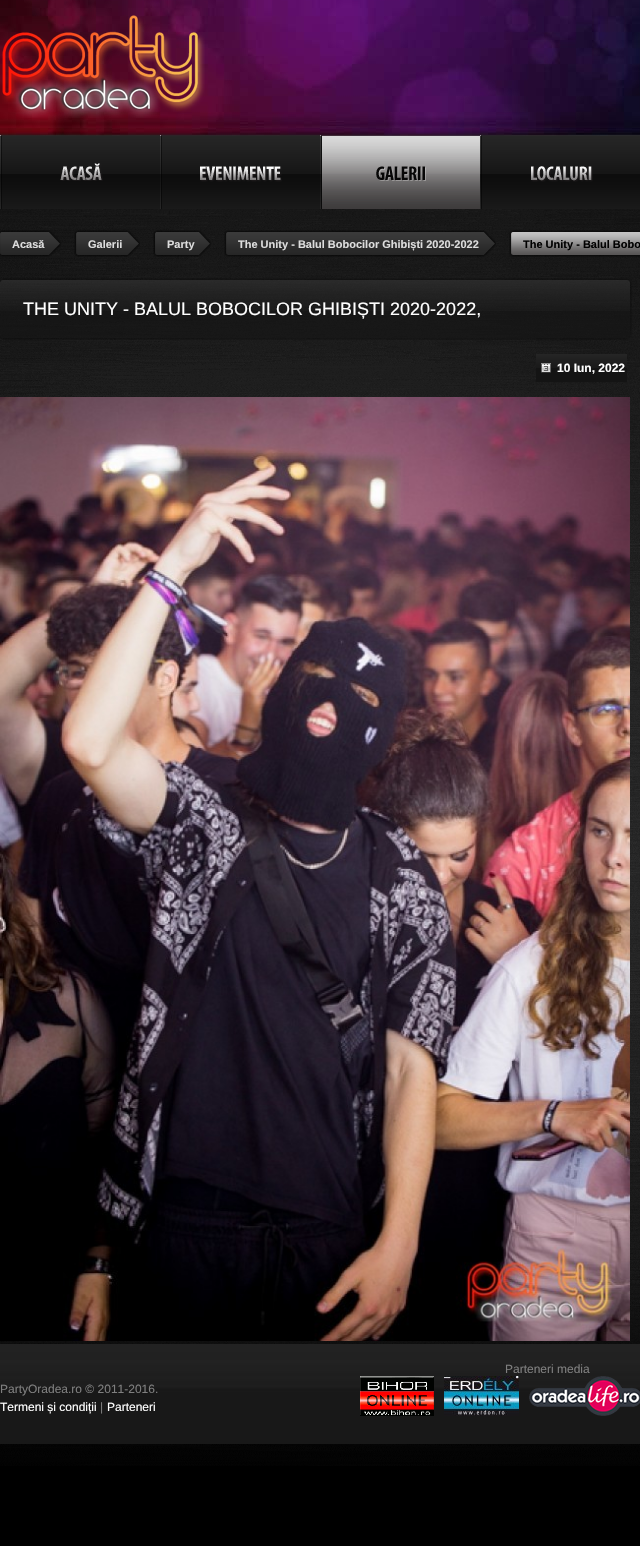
#include "include/core/SkBlurTypes.h"
#include "include/core/SkCanvas.h"
#include "include/core/SkData.h"
#include "include/core/SkFont.h"
#include "include/core/SkFontMgr.h"
#include "include/core/SkImage.h"
#include "include/core/SkMaskFilter.h"
#include "include/core/SkPaint.h"
#include "include/core/SkPathBuilder.h"
#include "include/core/SkTextBlob.h"
#include "include/effects/SkDashPathEffect.h"
#include "include/effects/SkGradientShader.h"
#include "include/utils/SkParsePath.h"

extern sk_sp<SkFontMgr> fontMgr;

void draw(SkCanvas* canvas) {
  SkPaint p;
  p.setAntiAlias(true);
  canvas->clear(SK_ColorBLACK);
  canvas->drawImageRect(SkImages::DeferredFromEncodedData(SkData::MakeFromFileName("images/1.png")), SkRect::MakeLTRB(0, 209, 640, 1466), SkSamplingOptions());
  canvas->drawImageRect(SkImages::DeferredFromEncodedData(SkData::MakeFromFileName("images/2.png")), SkRect::MakeLTRB(0, 0, 640, 136), SkSamplingOptions());
  canvas->drawImageRect(SkImages::DeferredFromEncodedData(SkData::MakeFromFileName("images/3.png")), SkRect::MakeLTRB(1, 15, 205, 118), SkSamplingOptions());
  canvas->drawImageRect(SkImages::DeferredFromEncodedData(SkData::MakeFromFileName("images/4.png")), SkRect::MakeLTRB(0, 135, 2, 209), SkSamplingOptions());
  canvas->drawImageRect(SkImages::DeferredFromEncodedData(SkData::MakeFromFileName("images/5.png")), SkRect::MakeLTRB(160, 135, 162, 209), SkSamplingOptions());
  canvas->drawImageRect(SkImages::DeferredFromEncodedData(SkData::MakeFromFileName("images/6.png")), SkRect::MakeLTRB(2, 135, 160, 209), SkSamplingOptions());
  canvas->drawImageRect(SkImages::DeferredFromEncodedData(SkData::MakeFromFileName("images/7.png")), SkRect::MakeLTRB(60, 163, 103, 181), SkSamplingOptions());
  canvas->drawImageRect(SkImages::DeferredFromEncodedData(SkData::MakeFromFileName("images/8.png")), SkRect::MakeLTRB(320, 135, 322, 209), SkSamplingOptions());
  canvas->drawImageRect(SkImages::DeferredFromEncodedData(SkData::MakeFromFileName("images/9.png")), SkRect::MakeLTRB(162, 135, 320, 209), SkSamplingOptions());
  canvas->drawImageRect(SkImages::DeferredFromEncodedData(SkData::MakeFromFileName("images/10.png")), SkRect::MakeLTRB(200, 166, 282, 182), SkSamplingOptions());
  canvas->drawImageRect(SkImages::DeferredFromEncodedData(SkData::MakeFromFileName("images/11.png")), SkRect::MakeLTRB(480, 135, 482, 209), SkSamplingOptions());
  canvas->drawImageRect(SkImages::DeferredFromEncodedData(SkData::MakeFromFileName("images/12.png")), SkRect::MakeLTRB(322, 135, 480, 209), SkSamplingOptions());
  canvas->drawImageRect(SkImages::DeferredFromEncodedData(SkData::MakeFromFileName("images/13.png")), SkRect::MakeLTRB(376, 166, 426, 181), SkSamplingOptions());
  canvas->drawImageRect(SkImages::DeferredFromEncodedData(SkData::MakeFromFileName("images/14.png")), SkRect::MakeLTRB(482, 135, 640, 209), SkSamplingOptions());
  canvas->drawImageRect(SkImages::DeferredFromEncodedData(SkData::MakeFromFileName("images/15.png")), SkRect::MakeLTRB(531, 166, 593, 182), SkSamplingOptions());
  canvas->drawImageRect(SkImages::DeferredFromEncodedData(SkData::MakeFromFileName("images/16.png")), SkRect::MakeLTRB(0, 230, 2, 257), SkSamplingOptions());
  canvas->drawImageRect(SkImages::DeferredFromEncodedData(SkData::MakeFromFileName("images/17.png")), SkRect::MakeLTRB(2, 230, 61, 257), SkSamplingOptions());
  canvas->drawImageRect(SkImages::DeferredFromEncodedData(SkData::MakeFromFileName("images/18.png")), SkRect::MakeLTRB(74, 231, 78, 257), SkSamplingOptions());
  canvas->drawImageRect(SkImages::DeferredFromEncodedData(SkData::MakeFromFileName("images/19.png")), SkRect::MakeLTRB(78, 230, 140, 257), SkSamplingOptions());
  canvas->drawImageRect(SkImages::DeferredFromEncodedData(SkData::MakeFromFileName("images/20.png")), SkRect::MakeLTRB(153, 230, 157, 257), SkSamplingOptions());
  canvas->drawImageRect(SkImages::DeferredFromEncodedData(SkData::MakeFromFileName("images/21.png")), SkRect::MakeLTRB(157, 230, 211, 257), SkSamplingOptions());
  canvas->drawImageRect(SkImages::DeferredFromEncodedData(SkData::MakeFromFileName("images/22.png")), SkRect::MakeLTRB(224, 230, 228, 256), SkSamplingOptions());
  canvas->drawImageRect(SkImages::DeferredFromEncodedData(SkData::MakeFromFileName("images/23.png")), SkRect::MakeLTRB(228, 230, 496, 257), SkSamplingOptions());
  canvas->drawImageRect(SkImages::DeferredFromEncodedData(SkData::MakeFromFileName("images/24.png")), SkRect::MakeLTRB(509, 230, 514, 257), SkSamplingOptions());
  canvas->drawImageRect(SkImages::DeferredFromEncodedData(SkData::MakeFromFileName("images/25.png")), SkRect::MakeLTRB(513, 230, 640, 257), SkSamplingOptions());
  canvas->drawImageRect(SkImages::DeferredFromEncodedData(SkData::MakeFromFileName("images/26.png")), SkRect::MakeLTRB(0, 279, 3, 338), SkSamplingOptions());
  canvas->drawImageRect(SkImages::DeferredFromEncodedData(SkData::MakeFromFileName("images/27.png")), SkRect::MakeLTRB(3, 278, 632, 340), SkSamplingOptions());
  canvas->drawImageRect(SkImages::DeferredFromEncodedData(SkData::MakeFromFileName("images/28.png")), SkRect::MakeLTRB(536, 354, 627, 382), SkSamplingOptions());
  canvas->drawImageRect(SkImages::DeferredFromEncodedData(SkData::MakeFromFileName("images/29.png")), SkRect::MakeLTRB(541, 363, 551, 373), SkSamplingOptions());
  canvas->drawImageRect(SkImages::DeferredFromEncodedData(SkData::MakeFromFileName("images/30.png")), SkRect::MakeLTRB(0, 397, 630, 1341), SkSamplingOptions());
  canvas->drawImageRect(SkImages::DeferredFromEncodedData(SkData::MakeFromFileName("images/31.png")), SkRect::MakeLTRB(0, 1344, 640, 1444), SkSamplingOptions());
  canvas->drawImageRect(SkImages::DeferredFromEncodedData(SkData::MakeFromFileName("images/32.png")), SkRect::MakeLTRB(360, 1376, 434, 1416), SkSamplingOptions());
  canvas->drawImageRect(SkImages::DeferredFromEncodedData(SkData::MakeFromFileName("images/33.png")), SkRect::MakeLTRB(444, 1376, 519, 1416), SkSamplingOptions());
  canvas->drawImageRect(SkImages::DeferredFromEncodedData(SkData::MakeFromFileName("images/34.png")), SkRect::MakeLTRB(529, 1376, 640, 1416), SkSamplingOptions());
  SkFont font1(fontMgr->matchFamilyStyle("Liberation Sans", SkFontStyle::Bold()), 11);
  font1.setSubpixel(true);
  p.setColor(SkColorSetRGB(221, 221, 221));
  canvas->drawString("Acasă", 12, 248, font1, p);
  canvas->drawString("Galerii", 88, 248, font1, p);
  canvas->drawString("Party", 167, 248, font1, p);
  canvas->drawString("The Unity - Balul Bobocilor Ghibiști 2020-2022", 238, 248, font1, p);
  p.setColor(SK_ColorBLACK);
  canvas->drawString("The Unity - Balul Bobo", 523, 248, font1, p);
  SkFont font2(fontMgr->matchFamilyStyle("Liberation Sans", SkFontStyle::Normal()), 18);
  font2.setSubpixel(true);
  p.setColor(SK_ColorWHITE);
  canvas->drawString("THE UNITY - BALUL BOBOCILOR GHIBIȘTI 2020-2022,", 23, 315, font2, p);
  SkFont font3(fontMgr->matchFamilyStyle("Liberation Sans", SkFontStyle::Bold()), 12);
  font3.setSubpixel(true);
  canvas->drawString("10 Iun, 2022", 557, 372, font3, p);
  SkFont font4(fontMgr->matchFamilyStyle("Liberation Sans", SkFontStyle::Normal()), 12);
  font4.setSubpixel(true);
  p.setColor(SkColorSetRGB(127, 127, 127));
  canvas->drawString("Parteneri media", 505, 1373, font4, p);
  canvas->drawString("PartyOradea.ro © 2011-2016.", 0, 1393, font4, p);
  p.setColor(SK_ColorWHITE);
  canvas->drawString("Termeni și condiții", 0, 1411, font4, p);
  p.setColor(SkColorSetRGB(127, 127, 127));
  canvas->drawString("|", 100, 1411, font4, p);
  p.setColor(SK_ColorWHITE);
  canvas->drawString("Parteneri", 107, 1411, font4, p);
}
